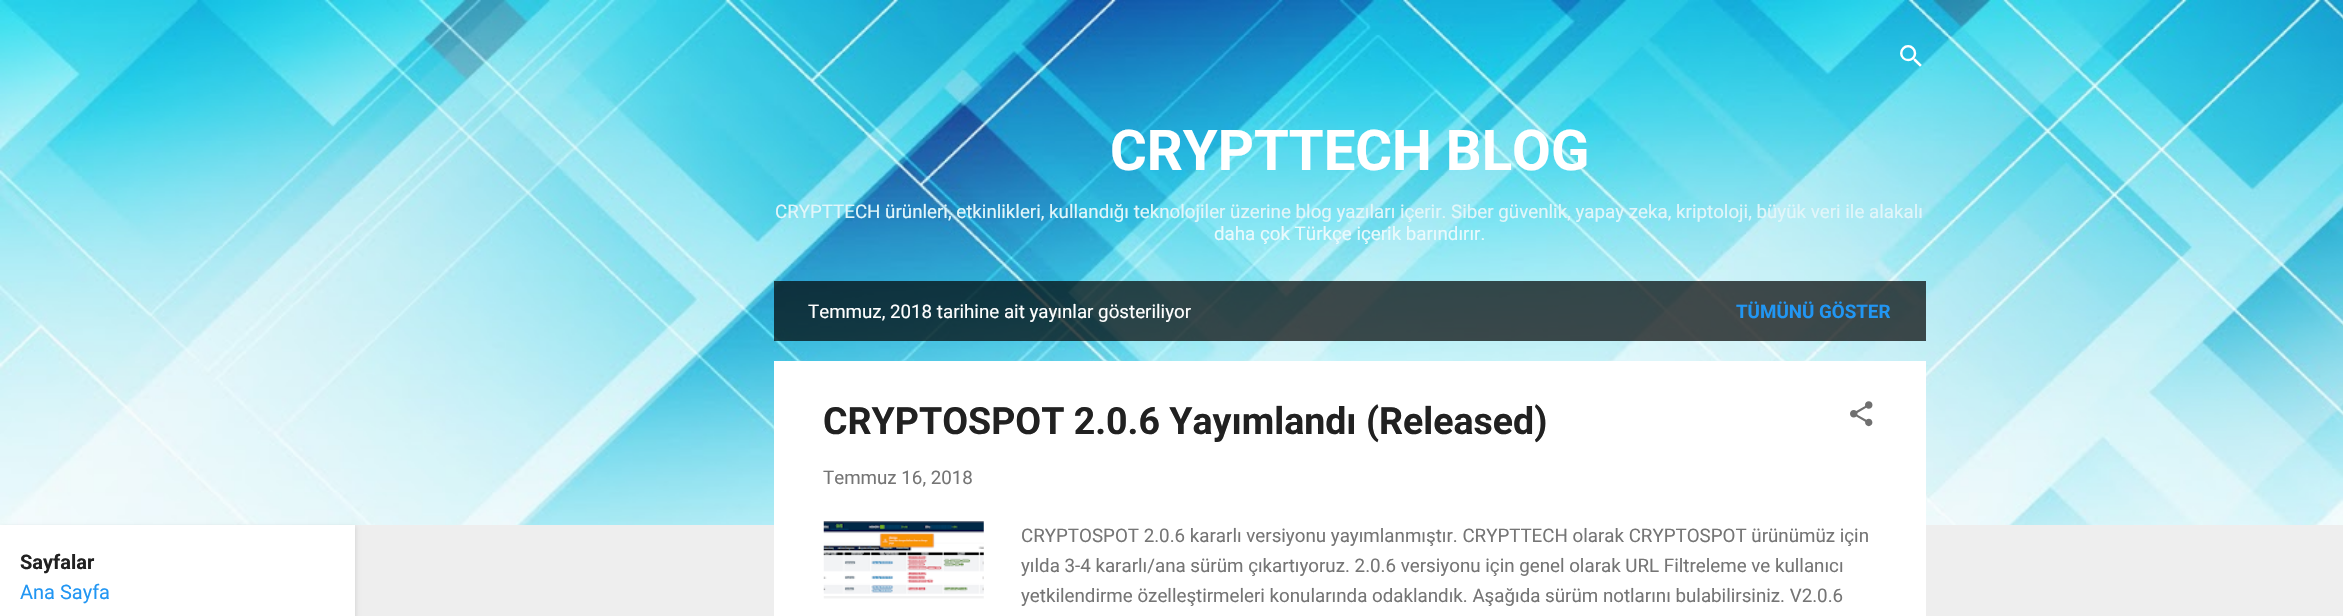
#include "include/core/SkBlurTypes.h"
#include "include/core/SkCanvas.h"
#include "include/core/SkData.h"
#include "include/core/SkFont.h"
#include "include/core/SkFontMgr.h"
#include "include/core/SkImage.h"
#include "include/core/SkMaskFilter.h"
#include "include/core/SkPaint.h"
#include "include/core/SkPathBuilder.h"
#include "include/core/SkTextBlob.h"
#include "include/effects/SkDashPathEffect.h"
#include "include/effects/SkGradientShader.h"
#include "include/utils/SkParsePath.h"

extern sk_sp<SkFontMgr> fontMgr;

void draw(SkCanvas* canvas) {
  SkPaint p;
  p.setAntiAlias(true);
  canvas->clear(SkColorSetRGB(238, 238, 238));
  canvas->drawImageRect(SkImages::DeferredFromEncodedData(SkData::MakeFromFileName("images/1.png")), SkRect::MakeLTRB(0, 0, 2343, 525), SkSamplingOptions());
  p.setColor(SkColorSetARGB(26, 0, 0, 0));
  p.setMaskFilter(SkMaskFilter::MakeBlur(kNormal_SkBlurStyle, 2));
  canvas->drawRect(SkRect::MakeLTRB(1, 526, 356, 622), p);
  p.setMaskFilter(nullptr);
  p.setColor(SK_ColorWHITE);
  canvas->drawRect(SkRect::MakeLTRB(0, 525, 355, 616), p);
  canvas->drawImageRect(SkImages::DeferredFromEncodedData(SkData::MakeFromFileName("images/2.png")), SkRect::MakeLTRB(1900, 45, 1922, 67), SkSamplingOptions());
  p.setColor(SkColorSetARGB(179, 0, 0, 0));
  canvas->drawRect(SkRect::MakeLTRB(774, 281, 1926, 341), p);
  p.setColor(SK_ColorWHITE);
  canvas->drawRect(SkRect::MakeLTRB(774, 361, 1926, 616), p);
  canvas->drawImageRect(SkImages::DeferredFromEncodedData(SkData::MakeFromFileName("images/3.png")), SkRect::MakeLTRB(1850, 401, 1873, 427), SkSamplingOptions());
  canvas->drawImageRect(SkImages::DeferredFromEncodedData(SkData::MakeFromFileName("images/4.png")), SkRect::MakeLTRB(823, 521, 984, 599), SkSamplingOptions());
  SkFont font1(fontMgr->matchFamilyStyle("Roboto", SkFontStyle::Bold()), 20);
  font1.setSubpixel(true);
  p.setColor(SkColorSetRGB(33, 33, 33));
  canvas->drawString("Sayfalar", 20, 569, font1, p);
  SkFont font2(fontMgr->matchFamilyStyle("Roboto", SkFontStyle::Normal()), 20);
  font2.setSubpixel(true);
  p.setColor(SkColorSetRGB(33, 150, 243));
  canvas->drawString("Ana Sayfa", 20, 599, font2, p);
  SkFont font3(fontMgr->matchFamilyStyle("Roboto", SkFontStyle::Bold()), 56.25f);
  font3.setSubpixel(true);
  p.setColor(SK_ColorWHITE);
  canvas->drawString("CRYPTTECH BLOG", 1110, 170, font3, p);
  SkFont font4(fontMgr->matchFamilyStyle("Roboto", SkFontStyle::Normal()), 18.75f);
  font4.setSubpixel(true);
  p.setColor(SkColorSetRGB(226, 246, 250));
  canvas->drawString("CRYPTTECH ürünleri, etkinlikleri, kullandığı teknolojiler üzerine blog yazıları içerir. Siber güvenlik, yapay zeka, kriptoloji, büyük veri ile alakalı", 775, 218, font4, p);
  p.setColor(SkColorSetRGB(233, 250, 253));
  canvas->drawString("daha çok Türkçe içerik barındırır.", 1214, 240, font4, p);
  p.setColor(SK_ColorWHITE);
  canvas->drawString("Temmuz, 2018 tarihine ait yayınlar gösteriliyor", 808, 318, font4, p);
  SkFont font5(fontMgr->matchFamilyStyle("Roboto", SkFontStyle::Bold()), 18.75f);
  font5.setSubpixel(true);
  p.setColor(SkColorSetRGB(33, 150, 243));
  canvas->drawString("TÜMÜNÜ GÖSTER", 1736, 318, font5, p);
  SkFont font6(fontMgr->matchFamilyStyle("Roboto", SkFontStyle::Bold()), 37.5f);
  font6.setSubpixel(true);
  p.setColor(SkColorSetRGB(33, 33, 33));
  canvas->drawString("CRYPTOSPOT 2.0.6 Yayımlandı (Released)", 823, 434, font6, p);
  p.setColor(SkColorSetRGB(117, 117, 117));
  canvas->drawString("Temmuz 16, 2018", 823, 484, font4, p);
  canvas->drawString("CRYPTOSPOT 2.0.6 kararlı versiyonu yayımlanmıştır. CRYPTTECH olarak CRYPTOSPOT ürünümüz için", 1021, 542, font4, p);
  canvas->drawString("yılda 3-4 kararlı/ana sürüm çıkartıyoruz. 2.0.6 versiyonu için genel olarak URL Filtreleme ve kullanıcı", 1021, 572, font4, p);
  canvas->drawString("yetkilendirme özelleştirmeleri konularında odaklandık. Aşağıda sürüm notlarını bulabilirsiniz. V2.0.6", 1021, 602, font4, p);
}
